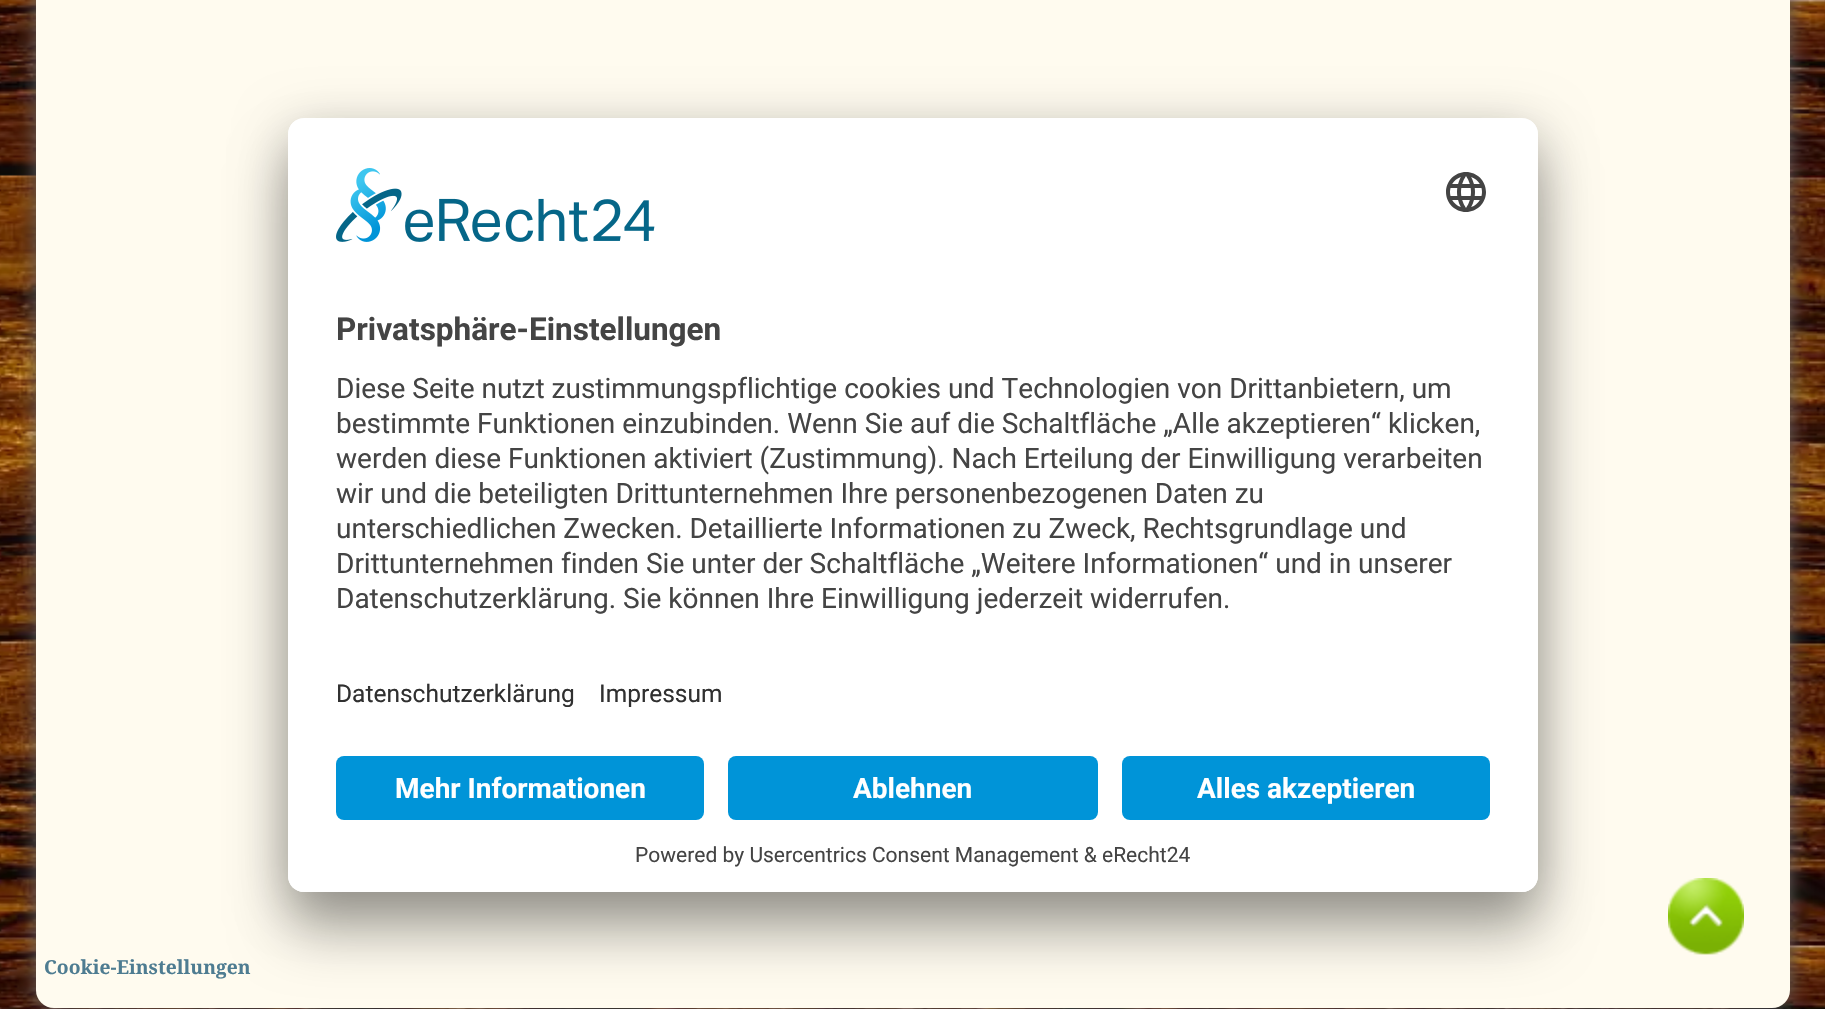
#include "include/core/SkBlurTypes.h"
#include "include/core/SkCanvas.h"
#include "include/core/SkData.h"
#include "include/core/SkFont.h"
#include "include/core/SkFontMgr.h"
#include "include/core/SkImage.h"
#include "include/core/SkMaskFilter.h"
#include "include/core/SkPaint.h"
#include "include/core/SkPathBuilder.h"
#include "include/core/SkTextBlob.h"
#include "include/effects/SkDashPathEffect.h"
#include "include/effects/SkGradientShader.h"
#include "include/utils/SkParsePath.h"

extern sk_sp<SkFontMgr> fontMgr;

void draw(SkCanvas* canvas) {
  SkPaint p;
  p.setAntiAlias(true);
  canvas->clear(SK_ColorWHITE);
  canvas->drawImageRect(SkImages::DeferredFromEncodedData(SkData::MakeFromFileName("images/1.png")), SkRect::MakeLTRB(0, 0, 1825, 1009), SkSamplingOptions());
  p.setColor(SkColorSetRGB(102, 102, 102));
  p.setMaskFilter(SkMaskFilter::MakeBlur(kNormal_SkBlurStyle, 10));
  canvas->drawRoundRect(SkRect::MakeLTRB(36, -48, 1790, 1008), 18, 18, p);
  p.setMaskFilter(nullptr);
  canvas->drawImageRect(SkImages::DeferredFromEncodedData(SkData::MakeFromFileName("images/2.png")), SkRect::MakeLTRB(36, 0, 1790, 1008), SkSamplingOptions());
  p.setColor(SkColorSetARGB(77, 0, 0, 0));
  p.setMaskFilter(SkMaskFilter::MakeBlur(kNormal_SkBlurStyle, 28));
  canvas->drawRoundRect(SkRect::MakeLTRB(288, 158, 1538, 932), 16, 16, p);
  p.setMaskFilter(nullptr);
  p.setColor(SkColorSetARGB(56, 0, 0, 0));
  p.setMaskFilter(SkMaskFilter::MakeBlur(kNormal_SkBlurStyle, 26));
  canvas->drawRoundRect(SkRect::MakeLTRB(288, 128, 1538, 902), 16, 16, p);
  p.setMaskFilter(nullptr);
  p.setColor(SK_ColorWHITE);
  canvas->drawRoundRect(SkRect::MakeLTRB(288, 118, 1538, 892), 16, 16, p);
  canvas->save();
  canvas->clipPath(SkPathBuilder().moveTo(304, 118).lineTo(1522, 118).cubicTo(1531, 118, 1538, 125, 1538, 134).lineTo(1538, 876).cubicTo(1538, 885, 1531, 892, 1522, 892).lineTo(304, 892).cubicTo(295, 892, 288, 885, 288, 876).lineTo(288, 134).cubicTo(288, 125, 295, 118, 304, 118).close().detach(), true);
  canvas->clipPath(SkPathBuilder().moveTo(304, 118).lineTo(1522, 118).cubicTo(1531, 118, 1538, 125, 1538, 134).lineTo(1538, 740).lineTo(288, 740).lineTo(288, 134).cubicTo(288, 125, 295, 118, 304, 118).close().detach(), true);
  canvas->drawRect(SkRect::MakeLTRB(288, 120, 1538, 740), p);
  canvas->restore();
  canvas->drawImageRect(SkImages::DeferredFromEncodedData(SkData::MakeFromFileName("images/3.png")), SkRect::MakeLTRB(336, 168, 655, 242), SkSamplingOptions());
  canvas->drawImageRect(SkImages::DeferredFromEncodedData(SkData::MakeFromFileName("images/4.png")), SkRect::MakeLTRB(1446, 172, 1486, 212), SkSamplingOptions());
  canvas->drawPath(SkPathBuilder().moveTo(288, 740).lineTo(1538, 740).lineTo(1538, 876).cubicTo(1538, 885, 1531, 892, 1522, 892).lineTo(304, 892).cubicTo(295, 892, 288, 885, 288, 876).close().detach(), p);
  p.setColor(SkColorSetRGB(0, 148, 216));
  canvas->drawRoundRect(SkRect::MakeLTRB(336, 756, 704, 820), 8, 8, p);
  canvas->drawRoundRect(SkRect::MakeLTRB(728, 756, 1098, 820), 8, 8, p);
  canvas->drawRoundRect(SkRect::MakeLTRB(1122, 756, 1490, 820), 8, 8, p);
  canvas->drawImageRect(SkImages::DeferredFromEncodedData(SkData::MakeFromFileName("images/5.png")), SkRect::MakeLTRB(1668, 878, 1744, 955), SkSamplingOptions());
  SkFont font1(fontMgr->matchFamilyStyle("Roboto", SkFontStyle::Bold()), 31.5f);
  font1.setSubpixel(true);
  p.setColor(SkColorSetRGB(68, 68, 68));
  canvas->drawString("Privatsphäre-Einstellungen", 336, 340, font1, p);
  SkFont font2(fontMgr->matchFamilyStyle("Roboto", SkFontStyle::Normal()), 28);
  font2.setSubpixel(true);
  canvas->drawString("Diese Seite nutzt zustimmungspflichtige cookies und Technologien von Drittanbietern, um", 336, 398, font2, p);
  canvas->drawString("bestimmte Funktionen einzubinden. Wenn Sie auf die Schaltfläche „Alle akzeptieren“ klicken,", 336, 433, font2, p);
  canvas->drawString("werden diese Funktionen aktiviert (Zustimmung). Nach Erteilung der Einwilligung verarbeiten", 336, 468, font2, p);
  canvas->drawString("wir und die beteiligten Drittunternehmen Ihre personenbezogenen Daten zu", 336, 503, font2, p);
  canvas->drawString("unterschiedlichen Zwecken. Detaillierte Informationen zu Zweck, Rechtsgrundlage und", 336, 538, font2, p);
  canvas->drawString("Drittunternehmen finden Sie unter der Schaltfläche „Weitere Informationen“ und in unserer", 336, 573, font2, p);
  canvas->drawString("Datenschutzerklärung. Sie können Ihre Einwilligung jederzeit widerrufen.", 336, 608, font2, p);
  SkFont font3(fontMgr->matchFamilyStyle("Roboto", SkFontStyle::Normal()), 24.5f);
  font3.setSubpixel(true);
  p.setColor(SkColorSetRGB(48, 48, 48));
  canvas->drawString("Datenschutzerklärung", 336, 702, font3, p);
  canvas->drawString("Impressum", 599, 702, font3, p);
  SkFont font4(fontMgr->matchFamilyStyle("Roboto", SkFontStyle::Bold()), 28);
  font4.setSubpixel(true);
  p.setColor(SK_ColorWHITE);
  canvas->drawString("Mehr Informationen", 395, 798, font4, p);
  canvas->drawString("Ablehnen", 853, 798, font4, p);
  canvas->drawString("Alles akzeptieren", 1197, 798, font4, p);
  SkFont font5(fontMgr->matchFamilyStyle("Roboto", SkFontStyle::Normal()), 21);
  font5.setSubpixel(true);
  p.setColor(SkColorSetRGB(68, 68, 68));
  canvas->drawString("Powered by Usercentrics Consent Management & eRecht24", 635, 862, font5, p);
  SkFont font6(fontMgr->matchFamilyStyle("Noto Serif", SkFontStyle::Bold()), 19.25f);
  font6.setSubpixel(true);
  p.setColor(SkColorSetRGB(78, 124, 145));
  canvas->drawString("Cookie-Einstellungen", 44, 974, font6, p);
}
